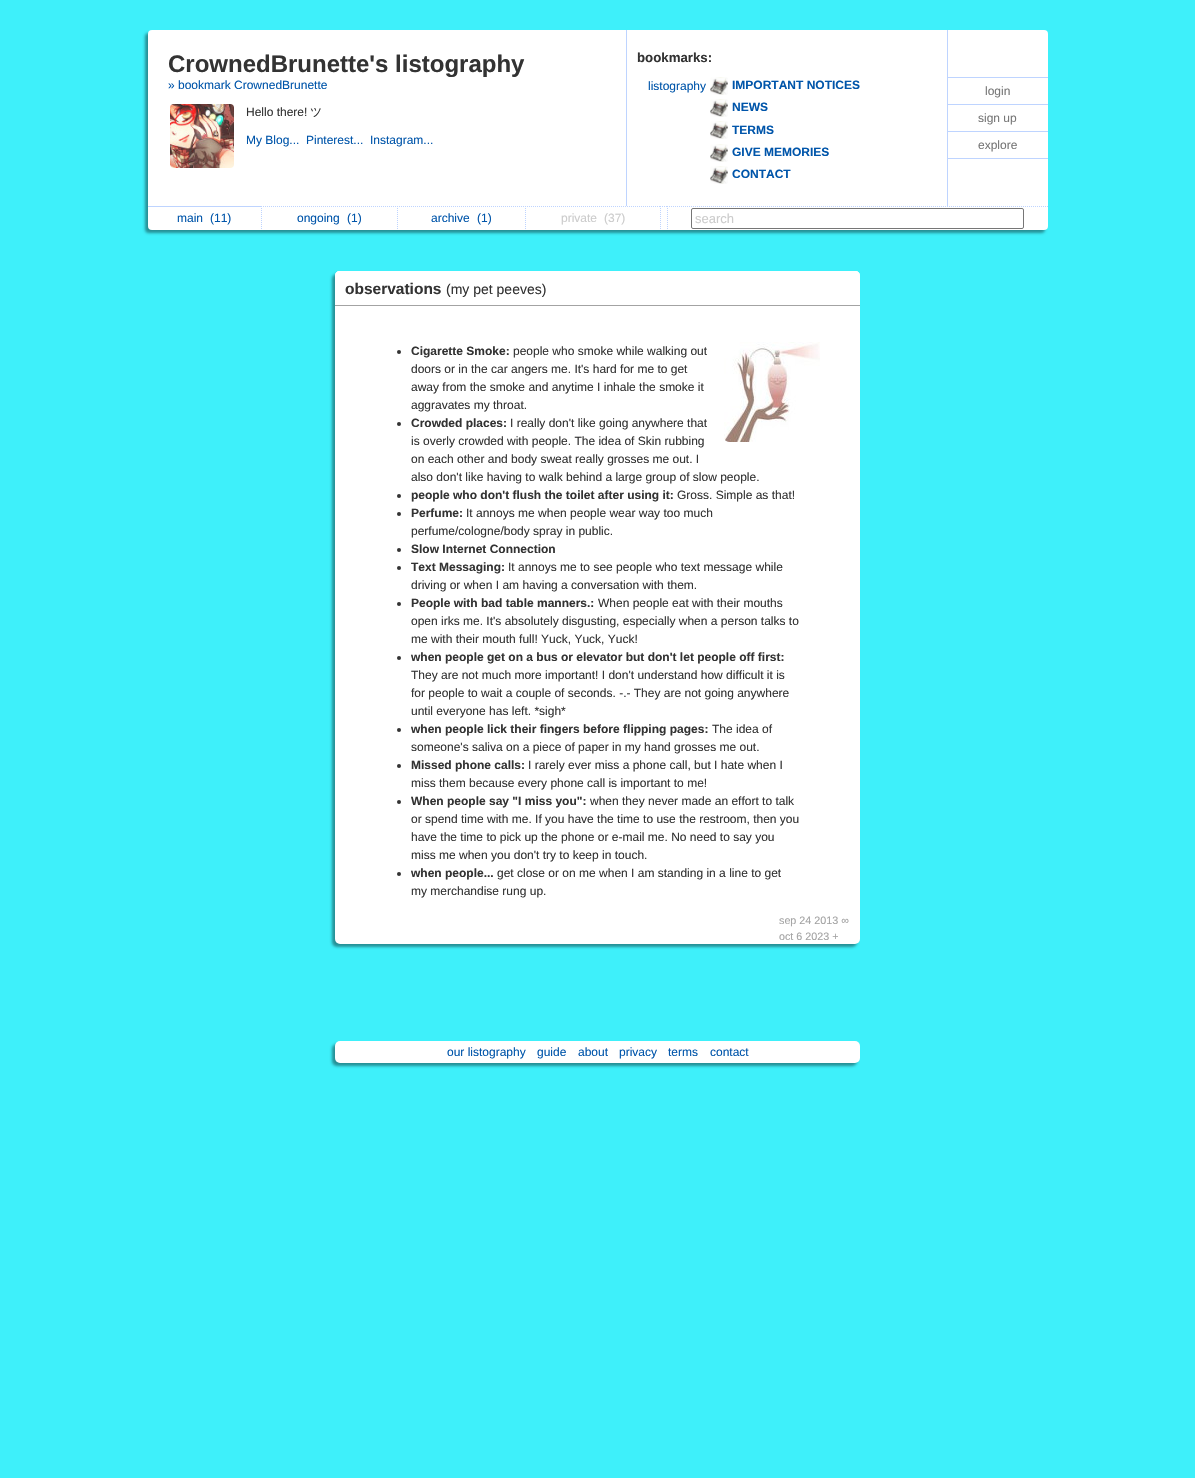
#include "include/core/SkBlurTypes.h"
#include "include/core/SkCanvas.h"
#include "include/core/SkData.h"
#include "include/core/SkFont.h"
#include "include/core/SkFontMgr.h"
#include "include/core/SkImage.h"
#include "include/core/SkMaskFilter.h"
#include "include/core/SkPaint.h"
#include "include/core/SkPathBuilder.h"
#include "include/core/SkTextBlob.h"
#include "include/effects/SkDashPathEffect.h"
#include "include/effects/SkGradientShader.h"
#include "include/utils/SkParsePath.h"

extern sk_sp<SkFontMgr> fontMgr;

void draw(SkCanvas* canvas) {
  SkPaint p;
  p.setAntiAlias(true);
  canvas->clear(SkColorSetRGB(62, 240, 250));
  p.setColor(SkColorSetARGB(102, 0, 0, 0));
  p.setMaskFilter(SkMaskFilter::MakeBlur(kNormal_SkBlurStyle, 1.5f));
  canvas->drawRoundRect(SkRect::MakeLTRB(145, 33, 1045, 233), 4, 4, p);
  p.setMaskFilter(nullptr);
  p.setColor(SK_ColorWHITE);
  canvas->drawRoundRect(SkRect::MakeLTRB(148, 30, 1048, 230), 4, 4, p);
  p.setColor(SkColorSetRGB(190, 212, 255));
  canvas->drawRect(SkRect::MakeLTRB(626, 30, 627, 206), p);
  canvas->drawImageRect(SkImages::DeferredFromEncodedData(SkData::MakeFromFileName("images/1.png")), SkRect::MakeLTRB(170, 104, 234, 168), SkSamplingOptions());
  canvas->drawImageRect(SkImages::DeferredFromEncodedData(SkData::MakeFromFileName("images/2.png")), SkRect::MakeLTRB(710, 77, 728, 95), SkSamplingOptions());
  canvas->drawImageRect(SkImages::DeferredFromEncodedData(SkData::MakeFromFileName("images/2.png")), SkRect::MakeLTRB(710, 99, 728, 117), SkSamplingOptions());
  canvas->drawImageRect(SkImages::DeferredFromEncodedData(SkData::MakeFromFileName("images/2.png")), SkRect::MakeLTRB(710, 121, 728, 139), SkSamplingOptions());
  canvas->drawImageRect(SkImages::DeferredFromEncodedData(SkData::MakeFromFileName("images/2.png")), SkRect::MakeLTRB(710, 144, 728, 162), SkSamplingOptions());
  canvas->drawImageRect(SkImages::DeferredFromEncodedData(SkData::MakeFromFileName("images/2.png")), SkRect::MakeLTRB(710, 166, 728, 184), SkSamplingOptions());
  canvas->drawRect(SkRect::MakeLTRB(947, 77, 1048, 78), p);
  canvas->drawRect(SkRect::MakeLTRB(947, 104, 1048, 105), p);
  canvas->drawRect(SkRect::MakeLTRB(947, 131, 1048, 132), p);
  canvas->drawRect(SkRect::MakeLTRB(947, 158, 1048, 159), p);
  canvas->drawRect(SkRect::MakeLTRB(947, 30, 948, 206), p);
  canvas->drawRect(SkRect::MakeLTRB(148, 206, 261, 207), p);
  p.setStyle(SkPaint::kStroke_Style);
  p.setStrokeWidth(1);
  p.setPathEffect(SkDashPathEffect::Make({{1, 1}}, 0));
  canvas->drawPath(SkPathBuilder().moveTo(261, 206.5f).lineTo(397, 206.5f).detach(), p);
  p.setPathEffect(nullptr);
  p.setPathEffect(SkDashPathEffect::Make({{1, 1}}, 0));
  canvas->drawPath(SkPathBuilder().moveTo(261.5f, 206).lineTo(261.5f, 230).detach(), p);
  p.setPathEffect(nullptr);
  p.setPathEffect(SkDashPathEffect::Make({{1, 1}}, 0));
  canvas->drawPath(SkPathBuilder().moveTo(397, 206.5f).lineTo(525, 206.5f).detach(), p);
  p.setPathEffect(nullptr);
  p.setPathEffect(SkDashPathEffect::Make({{1, 1}}, 0));
  canvas->drawPath(SkPathBuilder().moveTo(397.5f, 206).lineTo(397.5f, 230).detach(), p);
  p.setPathEffect(nullptr);
  p.setPathEffect(SkDashPathEffect::Make({{1, 1}}, 0));
  canvas->drawPath(SkPathBuilder().moveTo(525, 206.5f).lineTo(660, 206.5f).detach(), p);
  p.setPathEffect(nullptr);
  p.setPathEffect(SkDashPathEffect::Make({{1, 1}}, 0));
  canvas->drawPath(SkPathBuilder().moveTo(525.5f, 206).lineTo(525.5f, 230).detach(), p);
  p.setPathEffect(nullptr);
  canvas->drawPath(SkPathBuilder().moveTo(660, 206.5f).lineTo(661, 206.5f).moveTo(662, 206.5f).lineTo(663, 206.5f).moveTo(664, 206.5f).lineTo(665, 206.5f).moveTo(666, 206.5f).lineTo(667, 206.5f).detach(), p);
  p.setPathEffect(SkDashPathEffect::Make({{1, 1}}, 0));
  canvas->drawPath(SkPathBuilder().moveTo(660.5f, 206).lineTo(660.5f, 230).detach(), p);
  p.setPathEffect(nullptr);
  p.setPathEffect(SkDashPathEffect::Make({{1, 1}}, 0));
  canvas->drawPath(SkPathBuilder().moveTo(667, 206.5f).lineTo(1048, 206.5f).detach(), p);
  p.setPathEffect(nullptr);
  p.setPathEffect(SkDashPathEffect::Make({{1, 1}}, 0));
  canvas->drawPath(SkPathBuilder().moveTo(667.5f, 206).lineTo(667.5f, 230).detach(), p);
  p.setPathEffect(nullptr);
  p.setColor(SkColorSetRGB(118, 118, 118));
  canvas->drawRoundRect(SkRect::MakeLTRB(691.5f, 208.5f, 1023.5f, 228.5f), 1.5f, 1.5f, p);
  p.setStyle(SkPaint::kFill_Style);
  p.setColor(SkColorSetARGB(102, 0, 0, 0));
  p.setMaskFilter(SkMaskFilter::MakeBlur(kNormal_SkBlurStyle, 1.5f));
  canvas->drawRoundRect(SkRect::MakeLTRB(332, 274, 857, 947), 5, 5, p);
  p.setMaskFilter(nullptr);
  p.setColor(SK_ColorWHITE);
  canvas->drawRoundRect(SkRect::MakeLTRB(335, 271, 860, 944), 5, 5, p);
  canvas->drawPath(SkPathBuilder().moveTo(340, 271).lineTo(855, 271).cubicTo(858, 271, 860, 273, 860, 276).lineTo(860, 306).lineTo(335, 306).lineTo(335, 276).cubicTo(335, 273, 337, 271, 340, 271).close().detach(), p);
  canvas->drawPath(SkPathBuilder().moveTo(340, 271).cubicTo(337, 271, 335, 273, 335, 276).cubicTo(335, 274, 337, 272, 340, 272).lineTo(855, 272).cubicTo(858, 272, 860, 274, 860, 276).cubicTo(860, 273, 858, 271, 855, 271).close().detach(), p);
  p.setColor(SkColorSetRGB(163, 163, 163));
  canvas->drawRect(SkRect::MakeLTRB(335, 305, 860, 306), p);
  canvas->drawImageRect(SkImages::DeferredFromEncodedData(SkData::MakeFromFileName("images/3.png")), SkRect::MakeLTRB(724, 342, 820, 442), SkSamplingOptions());
  p.setColor(SkColorSetRGB(51, 51, 51));
  canvas->drawCircle(399, 352, 2, p);
  canvas->drawCircle(399, 424, 2, p);
  canvas->drawCircle(399, 496, 2, p);
  canvas->drawCircle(399, 514, 2, p);
  canvas->drawCircle(399, 550, 2, p);
  canvas->drawCircle(399, 568, 2, p);
  canvas->drawCircle(399, 604, 2, p);
  canvas->drawCircle(399, 658, 2, p);
  canvas->drawCircle(399, 730, 2, p);
  canvas->drawCircle(399, 766, 2, p);
  canvas->drawCircle(399, 802, 2, p);
  canvas->drawCircle(399, 874, 2, p);
  p.setColor(SkColorSetARGB(102, 0, 0, 0));
  p.setMaskFilter(SkMaskFilter::MakeBlur(kNormal_SkBlurStyle, 1.5f));
  canvas->drawRoundRect(SkRect::MakeLTRB(332, 1044, 857, 1066), 5, 5, p);
  p.setMaskFilter(nullptr);
  p.setColor(SK_ColorWHITE);
  canvas->drawRoundRect(SkRect::MakeLTRB(335, 1041, 860, 1063), 5, 5, p);
  SkFont font1(fontMgr->matchFamilyStyle("Liberation Sans", SkFontStyle::Bold()), 24);
  font1.setSubpixel(true);
  p.setColor(SkColorSetRGB(51, 51, 51));
  canvas->drawString("CrownedBrunette's listography", 168, 72, font1, p);
  SkFont font2(fontMgr->matchFamilyStyle("Liberation Sans", SkFontStyle::Normal()), 12);
  font2.setSubpixel(true);
  p.setColor(SkColorSetRGB(0, 85, 170));
  canvas->drawString("» bookmark CrownedBrunette", 168, 89, font2, p);
  p.setColor(SkColorSetRGB(51, 51, 51));
  canvas->drawString("Hello there!", 246, 116, font2, p);
  SkFont font3(fontMgr->matchFamilyStyle("WenQuanYi Zen Hei", SkFontStyle(500, SkFontStyle::kNormal_Width, SkFontStyle::kUpright_Slant)), 12);
  font3.setSubpixel(true);
  canvas->drawString("ツ", 310, 116, font3, p);
  p.setColor(SkColorSetRGB(0, 85, 170));
  canvas->drawString("My Blog...", 246, 144, font2, p);
  canvas->drawString("Pinterest...", 306, 144, font2, p);
  canvas->drawString("Instagram...", 370, 144, font2, p);
  SkFont font4(fontMgr->matchFamilyStyle("Liberation Sans", SkFontStyle::Bold()), 13.25f);
  font4.setSubpixel(true);
  p.setColor(SkColorSetRGB(51, 51, 51));
  canvas->drawString("bookmarks:", 637, 62, font4, p);
  p.setColor(SkColorSetRGB(0, 85, 170));
  canvas->drawString("listography", 648, 90, font2, p);
  SkFont font5(fontMgr->matchFamilyStyle("Liberation Sans", SkFontStyle::Bold()), 12);
  font5.setSubpixel(true);
  canvas->drawString("IMPORTANT NOTICES", 732, 89, font5, p);
  canvas->drawString("NEWS", 732, 111, font5, p);
  canvas->drawString("TERMS", 732, 134, font5, p);
  canvas->drawString("GIVE MEMORIES", 732, 156, font5, p);
  canvas->drawString("CONTACT", 732, 178, font5, p);
  p.setColor(SkColorSetRGB(119, 119, 119));
  canvas->drawString("login", 985, 95, font2, p);
  canvas->drawString("sign up", 978, 122, font2, p);
  canvas->drawString("explore", 978, 149, font2, p);
  p.setColor(SkColorSetRGB(0, 85, 170));
  canvas->drawString("main", 177, 222, font2, p);
  canvas->drawString("(11)", 210, 222, font2, p);
  canvas->drawString("ongoing", 297, 222, font2, p);
  canvas->drawString("(1)", 347, 222, font2, p);
  canvas->drawString("archive", 431, 222, font2, p);
  canvas->drawString("(1)", 477, 222, font2, p);
  p.setColor(SkColorSetRGB(204, 204, 204));
  canvas->drawString("private", 561, 222, font2, p);
  canvas->drawString("(37)", 604, 222, font2, p);
  SkFont font6(fontMgr->matchFamilyStyle("Liberation Sans", SkFontStyle::Normal()), 13);
  font6.setSubpixel(true);
  canvas->drawString("search", 695, 223, font6, p);
  SkFont font7(fontMgr->matchFamilyStyle("Liberation Sans", SkFontStyle::Bold()), 15.5f);
  font7.setSubpixel(true);
  p.setColor(SkColorSetRGB(51, 51, 51));
  canvas->drawString("observations", 345, 294, font7, p);
  SkFont font8(fontMgr->matchFamilyStyle("Liberation Sans", SkFontStyle::Normal()), 14);
  font8.setSubpixel(true);
  canvas->drawString("(my pet peeves)", 446, 294, font8, p);
  canvas->drawString("Cigarette Smoke:", 411, 355, font5, p);
  canvas->drawString("people who smoke while walking out", 513, 355, font2, p);
  canvas->drawString("doors or in the car angers me. It's hard for me to get", 411, 373, font2, p);
  canvas->drawString("away from the smoke and anytime I inhale the smoke it", 411, 391, font2, p);
  canvas->drawString("aggravates my throat.", 411, 409, font2, p);
  canvas->drawString("Crowded places:", 411, 427, font5, p);
  canvas->drawString("I really don't like going anywhere that", 510, 427, font2, p);
  canvas->drawString("is overly crowded with people. The idea of Skin rubbing", 411, 445, font2, p);
  canvas->drawString("on each other and body sweat really grosses me out. I", 411, 463, font2, p);
  canvas->drawString("also don't like having to walk behind a large group of slow people.", 411, 481, font2, p);
  canvas->drawString("people who don't flush the toilet after using it:", 411, 499, font5, p);
  canvas->drawString("Gross. Simple as that!", 677, 499, font2, p);
  canvas->drawString("Perfume:", 411, 517, font5, p);
  canvas->drawString("It annoys me when people wear way too much", 466, 517, font2, p);
  canvas->drawString("perfume/cologne/body spray in public.", 411, 535, font2, p);
  canvas->drawString("Slow Internet Connection", 411, 553, font5, p);
  canvas->drawString("Text Messaging:", 411, 571, font5, p);
  canvas->drawString("It annoys me to see people who text message while", 508, 571, font2, p);
  canvas->drawString("driving or when I am having a conversation with them.", 411, 589, font2, p);
  canvas->drawString("People with bad table manners.:", 411, 607, font5, p);
  canvas->drawString("When people eat with their mouths", 598, 607, font2, p);
  canvas->drawString("open irks me. It's absolutely disgusting, especially when a person talks to", 411, 625, font2, p);
  canvas->drawString("me with their mouth full! Yuck, Yuck, Yuck!", 411, 643, font2, p);
  canvas->drawString("when people get on a bus or elevator but don't let people off first:", 411, 661, font5, p);
  canvas->drawString("They are not much more important! I don't understand how difficult it is", 411, 679, font2, p);
  canvas->drawString("for people to wait a couple of seconds. -.- They are not going anywhere", 411, 697, font2, p);
  canvas->drawString("until everyone has left. *sigh*", 411, 715, font2, p);
  canvas->drawString("when people lick their fingers before flipping pages:", 411, 733, font5, p);
  canvas->drawString("The idea of", 712, 733, font2, p);
  canvas->drawString("someone's saliva on a piece of paper in my hand grosses me out.", 411, 751, font2, p);
  canvas->drawString("Missed phone calls:", 411, 769, font5, p);
  canvas->drawString("I rarely ever miss a phone call, but I hate when I", 528, 769, font2, p);
  canvas->drawString("miss them because every phone call is important to me!", 411, 787, font2, p);
  canvas->drawString("When people say \"I miss you\":", 411, 805, font5, p);
  canvas->drawString("when they never made an effort to talk", 590, 805, font2, p);
  canvas->drawString("or spend time with me. If you have the time to use the restroom, then you", 411, 823, font2, p);
  canvas->drawString("have the time to pick up the phone or e-mail me. No need to say you", 411, 841, font2, p);
  canvas->drawString("miss me when you don't try to keep in touch.", 411, 859, font2, p);
  canvas->drawString("when people...", 411, 877, font5, p);
  canvas->drawString("get close or on me when I am standing in a line to get", 497, 877, font2, p);
  canvas->drawString("my merchandise rung up.", 411, 895, font2, p);
  SkFont font9(fontMgr->matchFamilyStyle("Liberation Sans", SkFontStyle::Normal()), 10.75f);
  font9.setSubpixel(true);
  p.setColor(SkColorSetRGB(163, 163, 163));
  canvas->drawString("sep 24 2013 ∞", 779, 924, font9, p);
  canvas->drawString("oct 6 2023 +", 779, 940, font9, p);
  p.setColor(SkColorSetRGB(0, 85, 170));
  canvas->drawString("our listography", 447, 1056, font2, p);
  canvas->drawString("guide", 537, 1056, font2, p);
  canvas->drawString("about", 578, 1056, font2, p);
  canvas->drawString("privacy", 619, 1056, font2, p);
  canvas->drawString("terms", 668, 1056, font2, p);
  canvas->drawString("contact", 710, 1056, font2, p);
}
